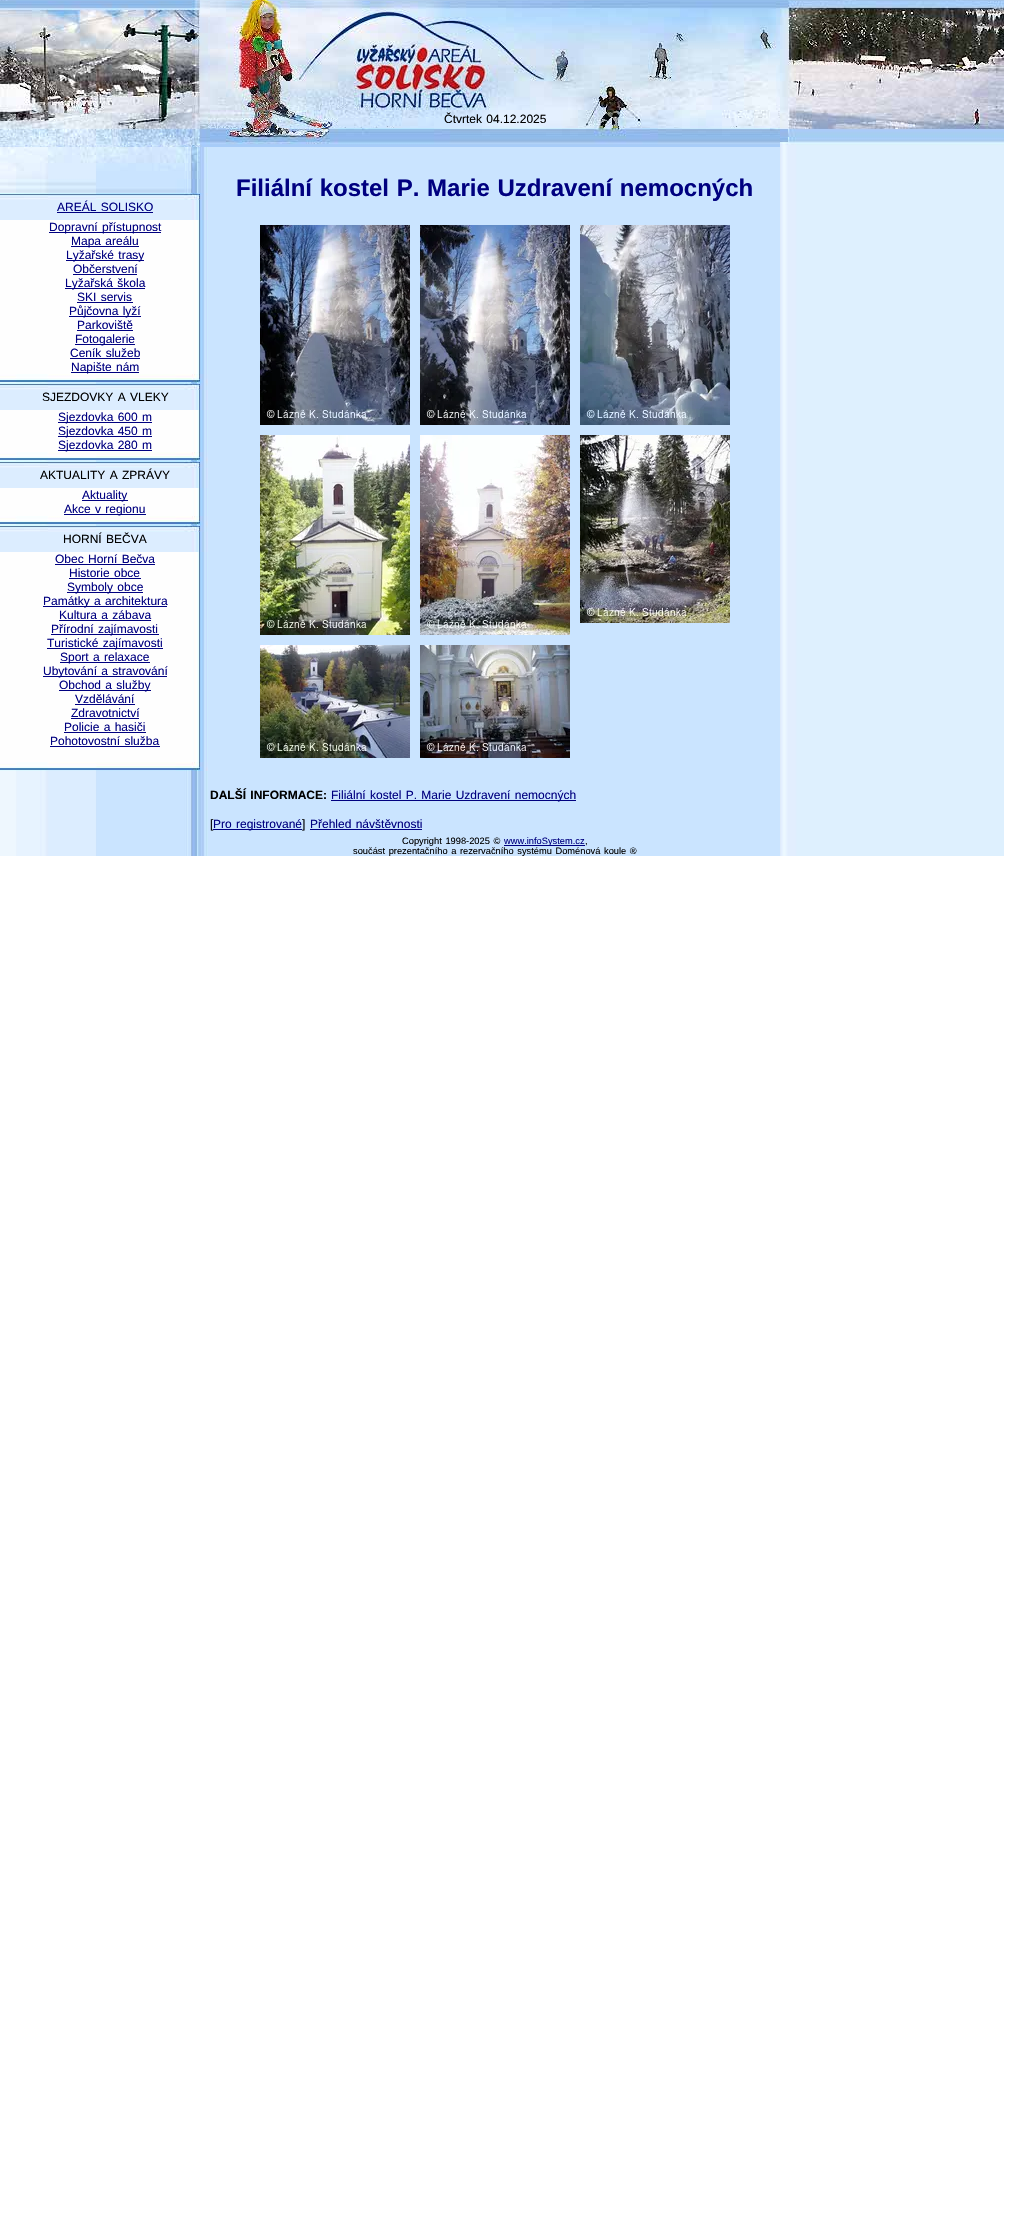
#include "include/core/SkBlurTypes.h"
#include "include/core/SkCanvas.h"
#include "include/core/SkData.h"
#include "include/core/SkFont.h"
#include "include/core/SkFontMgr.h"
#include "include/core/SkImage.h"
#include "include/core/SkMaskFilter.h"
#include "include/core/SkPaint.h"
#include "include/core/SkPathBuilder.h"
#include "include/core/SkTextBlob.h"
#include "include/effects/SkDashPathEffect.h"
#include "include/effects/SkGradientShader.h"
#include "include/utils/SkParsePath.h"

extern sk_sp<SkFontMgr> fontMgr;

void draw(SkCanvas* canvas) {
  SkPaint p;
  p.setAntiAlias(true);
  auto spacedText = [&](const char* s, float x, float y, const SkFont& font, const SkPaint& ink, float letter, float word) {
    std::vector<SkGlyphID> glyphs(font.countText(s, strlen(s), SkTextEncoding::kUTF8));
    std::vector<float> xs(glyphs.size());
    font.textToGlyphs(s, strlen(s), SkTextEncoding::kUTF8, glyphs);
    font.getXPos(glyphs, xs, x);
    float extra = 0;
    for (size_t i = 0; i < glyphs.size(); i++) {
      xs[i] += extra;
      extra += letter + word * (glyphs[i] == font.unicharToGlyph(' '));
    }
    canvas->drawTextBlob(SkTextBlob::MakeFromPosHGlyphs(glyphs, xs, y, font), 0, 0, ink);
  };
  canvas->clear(SK_ColorWHITE);
  canvas->drawImageRect(SkImages::DeferredFromEncodedData(SkData::MakeFromFileName("images/1.png")), SkRect::MakeLTRB(0, 0, 1004, 1), SkSamplingOptions());
  canvas->drawImageRect(SkImages::DeferredFromEncodedData(SkData::MakeFromFileName("images/2.png")), SkRect::MakeLTRB(0, 1, 210, 147), SkSamplingOptions());
  canvas->drawImageRect(SkImages::DeferredFromEncodedData(SkData::MakeFromFileName("images/3.png")), SkRect::MakeLTRB(210, 1, 536, 110), SkSamplingOptions());
  canvas->drawImageRect(SkImages::DeferredFromEncodedData(SkData::MakeFromFileName("images/4.png")), SkRect::MakeLTRB(536, 1, 780, 110), SkSamplingOptions());
  canvas->drawImageRect(SkImages::DeferredFromEncodedData(SkData::MakeFromFileName("images/5.png")), SkRect::MakeLTRB(780, 1, 1004, 147), SkSamplingOptions());
  canvas->drawImageRect(SkImages::DeferredFromEncodedData(SkData::MakeFromFileName("images/6.png")), SkRect::MakeLTRB(210, 110, 780, 128), SkSamplingOptions());
  canvas->drawImageRect(SkImages::DeferredFromEncodedData(SkData::MakeFromFileName("images/7.png")), SkRect::MakeLTRB(210, 128, 780, 147), SkSamplingOptions());
  p.setColor(SkColorSetRGB(202, 228, 255));
  canvas->drawRect(SkRect::MakeLTRB(208, 147, 780, 856), p);
  canvas->drawImageRect(SkImages::DeferredFromEncodedData(SkData::MakeFromFileName("images/8.png")), SkRect::MakeLTRB(0, 147, 208, 856), SkSamplingOptions());
  canvas->drawImageRect(SkImages::DeferredFromEncodedData(SkData::MakeFromFileName("images/9.png")), SkRect::MakeLTRB(0, 147, 207, 193), SkSamplingOptions());
  canvas->drawImageRect(SkImages::DeferredFromEncodedData(SkData::MakeFromFileName("images/10.png")), SkRect::MakeLTRB(0, 193, 208, 200), SkSamplingOptions());
  canvas->drawImageRect(SkImages::DeferredFromEncodedData(SkData::MakeFromFileName("images/11.png")), SkRect::MakeLTRB(0, 200, 208, 220), SkSamplingOptions());
  p.setColor(SkColorSetRGB(0, 0, 128));
  canvas->drawRect(SkRect::MakeLTRB(57, 212, 153, 213), p);
  canvas->drawImageRect(SkImages::DeferredFromEncodedData(SkData::MakeFromFileName("images/12.png")), SkRect::MakeLTRB(0, 220, 207, 374), SkSamplingOptions());
  canvas->drawRect(SkRect::MakeLTRB(49, 232, 161, 233), p);
  canvas->drawRect(SkRect::MakeLTRB(71, 246, 139, 247), p);
  canvas->drawRect(SkRect::MakeLTRB(66, 260, 144, 261), p);
  canvas->drawRect(SkRect::MakeLTRB(73, 274, 137, 275), p);
  canvas->drawRect(SkRect::MakeLTRB(65, 288, 145, 289), p);
  canvas->drawRect(SkRect::MakeLTRB(77, 302, 133, 303), p);
  canvas->drawRect(SkRect::MakeLTRB(69, 316, 141, 317), p);
  canvas->drawRect(SkRect::MakeLTRB(77, 330, 133, 331), p);
  canvas->drawRect(SkRect::MakeLTRB(75, 344, 135, 345), p);
  canvas->drawRect(SkRect::MakeLTRB(70, 358, 140, 359), p);
  canvas->drawRect(SkRect::MakeLTRB(71, 372, 139, 373), p);
  canvas->drawImageRect(SkImages::DeferredFromEncodedData(SkData::MakeFromFileName("images/13.png")), SkRect::MakeLTRB(0, 374, 208, 383), SkSamplingOptions());
  canvas->drawImageRect(SkImages::DeferredFromEncodedData(SkData::MakeFromFileName("images/10.png")), SkRect::MakeLTRB(0, 383, 208, 390), SkSamplingOptions());
  canvas->drawImageRect(SkImages::DeferredFromEncodedData(SkData::MakeFromFileName("images/11.png")), SkRect::MakeLTRB(0, 390, 208, 410), SkSamplingOptions());
  canvas->drawImageRect(SkImages::DeferredFromEncodedData(SkData::MakeFromFileName("images/14.png")), SkRect::MakeLTRB(0, 410, 207, 452), SkSamplingOptions());
  canvas->drawRect(SkRect::MakeLTRB(58, 422, 152, 423), p);
  canvas->drawRect(SkRect::MakeLTRB(58, 436, 152, 437), p);
  canvas->drawRect(SkRect::MakeLTRB(58, 450, 152, 451), p);
  canvas->drawImageRect(SkImages::DeferredFromEncodedData(SkData::MakeFromFileName("images/13.png")), SkRect::MakeLTRB(0, 452, 208, 461), SkSamplingOptions());
  canvas->drawImageRect(SkImages::DeferredFromEncodedData(SkData::MakeFromFileName("images/10.png")), SkRect::MakeLTRB(0, 461, 208, 468), SkSamplingOptions());
  canvas->drawImageRect(SkImages::DeferredFromEncodedData(SkData::MakeFromFileName("images/11.png")), SkRect::MakeLTRB(0, 468, 208, 488), SkSamplingOptions());
  canvas->drawImageRect(SkImages::DeferredFromEncodedData(SkData::MakeFromFileName("images/15.png")), SkRect::MakeLTRB(0, 488, 207, 516), SkSamplingOptions());
  canvas->drawRect(SkRect::MakeLTRB(82, 500, 128, 501), p);
  canvas->drawRect(SkRect::MakeLTRB(64, 514, 146, 515), p);
  canvas->drawImageRect(SkImages::DeferredFromEncodedData(SkData::MakeFromFileName("images/13.png")), SkRect::MakeLTRB(0, 516, 208, 525), SkSamplingOptions());
  canvas->drawImageRect(SkImages::DeferredFromEncodedData(SkData::MakeFromFileName("images/10.png")), SkRect::MakeLTRB(0, 525, 208, 532), SkSamplingOptions());
  canvas->drawImageRect(SkImages::DeferredFromEncodedData(SkData::MakeFromFileName("images/11.png")), SkRect::MakeLTRB(0, 532, 208, 552), SkSamplingOptions());
  canvas->drawImageRect(SkImages::DeferredFromEncodedData(SkData::MakeFromFileName("images/16.png")), SkRect::MakeLTRB(0, 552, 207, 762), SkSamplingOptions());
  canvas->drawRect(SkRect::MakeLTRB(55, 564, 155, 565), p);
  canvas->drawRect(SkRect::MakeLTRB(69, 578, 141, 579), p);
  canvas->drawRect(SkRect::MakeLTRB(67, 592, 143, 593), p);
  canvas->drawRect(SkRect::MakeLTRB(43, 606, 167, 607), p);
  canvas->drawRect(SkRect::MakeLTRB(59, 620, 151, 621), p);
  canvas->drawRect(SkRect::MakeLTRB(51, 634, 159, 635), p);
  canvas->drawRect(SkRect::MakeLTRB(47, 648, 163, 649), p);
  canvas->drawRect(SkRect::MakeLTRB(60, 662, 150, 663), p);
  canvas->drawRect(SkRect::MakeLTRB(43, 676, 167, 677), p);
  canvas->drawRect(SkRect::MakeLTRB(59, 690, 151, 691), p);
  canvas->drawRect(SkRect::MakeLTRB(75, 704, 135, 705), p);
  canvas->drawRect(SkRect::MakeLTRB(71, 718, 139, 719), p);
  canvas->drawRect(SkRect::MakeLTRB(64, 732, 146, 733), p);
  canvas->drawRect(SkRect::MakeLTRB(50, 746, 160, 747), p);
  canvas->drawImageRect(SkImages::DeferredFromEncodedData(SkData::MakeFromFileName("images/13.png")), SkRect::MakeLTRB(0, 762, 208, 771), SkSamplingOptions());
  canvas->drawImageRect(SkImages::DeferredFromEncodedData(SkData::MakeFromFileName("images/17.png")), SkRect::MakeLTRB(260, 225, 410, 425), SkSamplingOptions());
  canvas->drawImageRect(SkImages::DeferredFromEncodedData(SkData::MakeFromFileName("images/18.png")), SkRect::MakeLTRB(420, 225, 570, 425), SkSamplingOptions());
  canvas->drawImageRect(SkImages::DeferredFromEncodedData(SkData::MakeFromFileName("images/19.png")), SkRect::MakeLTRB(580, 225, 730, 425), SkSamplingOptions());
  canvas->drawImageRect(SkImages::DeferredFromEncodedData(SkData::MakeFromFileName("images/20.png")), SkRect::MakeLTRB(260, 435, 410, 635), SkSamplingOptions());
  canvas->drawImageRect(SkImages::DeferredFromEncodedData(SkData::MakeFromFileName("images/21.png")), SkRect::MakeLTRB(420, 435, 570, 635), SkSamplingOptions());
  canvas->drawImageRect(SkImages::DeferredFromEncodedData(SkData::MakeFromFileName("images/22.png")), SkRect::MakeLTRB(580, 435, 730, 623), SkSamplingOptions());
  canvas->drawImageRect(SkImages::DeferredFromEncodedData(SkData::MakeFromFileName("images/23.png")), SkRect::MakeLTRB(260, 645, 410, 758), SkSamplingOptions());
  canvas->drawImageRect(SkImages::DeferredFromEncodedData(SkData::MakeFromFileName("images/24.png")), SkRect::MakeLTRB(420, 645, 570, 758), SkSamplingOptions());
  canvas->drawRect(SkRect::MakeLTRB(331, 800, 576, 801), p);
  canvas->drawRect(SkRect::MakeLTRB(310, 829, 422, 830), p);
  canvas->drawRect(SkRect::MakeLTRB(504, 845, 585, 846), p);
  canvas->drawImageRect(SkImages::DeferredFromEncodedData(SkData::MakeFromFileName("images/25.png")), SkRect::MakeLTRB(780, 147, 1004, 856), SkSamplingOptions());
  SkFont font1(fontMgr->matchFamilyStyle("Liberation Sans", SkFontStyle::Normal()), 12);
  font1.setSubpixel(true);
  p.setColor(SK_ColorBLACK);
  spacedText("Čtvrtek 04.12.2025", 444, 123, font1, p, 0, 1);
  p.setColor(SkColorSetRGB(0, 0, 128));
  spacedText("AREÁL SOLISKO", 57, 211, font1, p, 0, 1);
  spacedText("Dopravní přístupnost", 49, 231, font1, p, 0, 1);
  spacedText("Mapa areálu", 71, 245, font1, p, 0, 1);
  spacedText("Lyžařské trasy", 66, 259, font1, p, 0, 1);
  canvas->drawString("Občerstvení", 73, 273, font1, p);
  spacedText("Lyžařská škola", 65, 287, font1, p, 0, 1);
  spacedText("SKI servis", 77, 301, font1, p, 0, 1);
  spacedText("Půjčovna lyží", 69, 315, font1, p, 0, 1);
  canvas->drawString("Parkoviště", 77, 329, font1, p);
  canvas->drawString("Fotogalerie", 75, 343, font1, p);
  spacedText("Ceník služeb", 70, 357, font1, p, 0, 1);
  spacedText("Napište nám", 71, 371, font1, p, 0, 1);
  p.setColor(SK_ColorBLACK);
  spacedText("SJEZDOVKY A VLEKY", 42, 401, font1, p, 0, 1);
  p.setColor(SkColorSetRGB(0, 0, 128));
  spacedText("Sjezdovka 600 m", 58, 421, font1, p, 0, 1);
  spacedText("Sjezdovka 450 m", 58, 435, font1, p, 0, 1);
  spacedText("Sjezdovka 280 m", 58, 449, font1, p, 0, 1);
  p.setColor(SK_ColorBLACK);
  spacedText("AKTUALITY A ZPRÁVY", 40, 479, font1, p, 0, 1);
  p.setColor(SkColorSetRGB(0, 0, 128));
  canvas->drawString("Aktuality", 82, 499, font1, p);
  spacedText("Akce v regionu", 64, 513, font1, p, 0, 1);
  p.setColor(SK_ColorBLACK);
  spacedText("HORNÍ BEČVA", 63, 543, font1, p, 0, 1);
  p.setColor(SkColorSetRGB(0, 0, 128));
  spacedText("Obec Horní Bečva", 55, 563, font1, p, 0, 1);
  spacedText("Historie obce", 69, 577, font1, p, 0, 1);
  spacedText("Symboly obce", 67, 591, font1, p, 0, 1);
  spacedText("Památky a architektura", 43, 605, font1, p, 0, 1);
  spacedText("Kultura a zábava", 59, 619, font1, p, 0, 1);
  spacedText("Přírodní zajímavosti", 51, 633, font1, p, 0, 1);
  spacedText("Turistické zajímavosti", 47, 647, font1, p, 0, 1);
  spacedText("Sport a relaxace", 60, 661, font1, p, 0, 1);
  spacedText("Ubytování a stravování", 43, 675, font1, p, 0, 1);
  spacedText("Obchod a služby", 59, 689, font1, p, 0, 1);
  canvas->drawString("Vzdělávání", 75, 703, font1, p);
  canvas->drawString("Zdravotnictví", 71, 717, font1, p);
  spacedText("Policie a hasiči", 64, 731, font1, p, 0, 1);
  spacedText("Pohotovostní služba", 50, 745, font1, p, 0, 1);
  SkFont font2(fontMgr->matchFamilyStyle("Liberation Sans", SkFontStyle::Bold()), 24);
  font2.setSubpixel(true);
  spacedText("Filiální kostel P. Marie Uzdravení nemocných", 236, 196, font2, p, 0, 1);
  SkFont font3(fontMgr->matchFamilyStyle("Liberation Sans", SkFontStyle::Bold()), 12);
  font3.setSubpixel(true);
  p.setColor(SK_ColorBLACK);
  spacedText("DALŠÍ INFORMACE:", 210, 799, font3, p, 0, 1);
  p.setColor(SkColorSetRGB(0, 0, 128));
  spacedText("Filiální kostel P. Marie Uzdravení nemocných", 331, 799, font1, p, 0, 1);
  p.setColor(SK_ColorBLACK);
  canvas->drawString("[", 210, 828, font1, p);
  p.setColor(SkColorSetRGB(0, 0, 128));
  canvas->drawRect(SkRect::MakeLTRB(213, 829, 302, 830), p);
  spacedText("Pro registrované", 213, 828, font1, p, 0, 1);
  p.setColor(SK_ColorBLACK);
  canvas->drawString("]", 302, 828, font1, p);
  p.setColor(SkColorSetRGB(0, 0, 128));
  spacedText("Přehled návštěvnosti", 310, 828, font1, p, 0, 1);
  SkFont font4(fontMgr->matchFamilyStyle("Liberation Sans", SkFontStyle::Normal()), 9.3f);
  font4.setSubpixel(true);
  p.setColor(SK_ColorBLACK);
  spacedText("Copyright 1998-2025 ©", 402, 844, font4, p, 0, 1);
  p.setColor(SkColorSetRGB(0, 0, 128));
  canvas->drawString("www.infoSystem.cz", 504, 844, font4, p);
  p.setColor(SK_ColorBLACK);
  canvas->drawString(",", 585, 844, font4, p);
  spacedText("součást prezentačního a rezervačního systému Doménová koule ®", 353, 854, font4, p, 0, 1);
}
